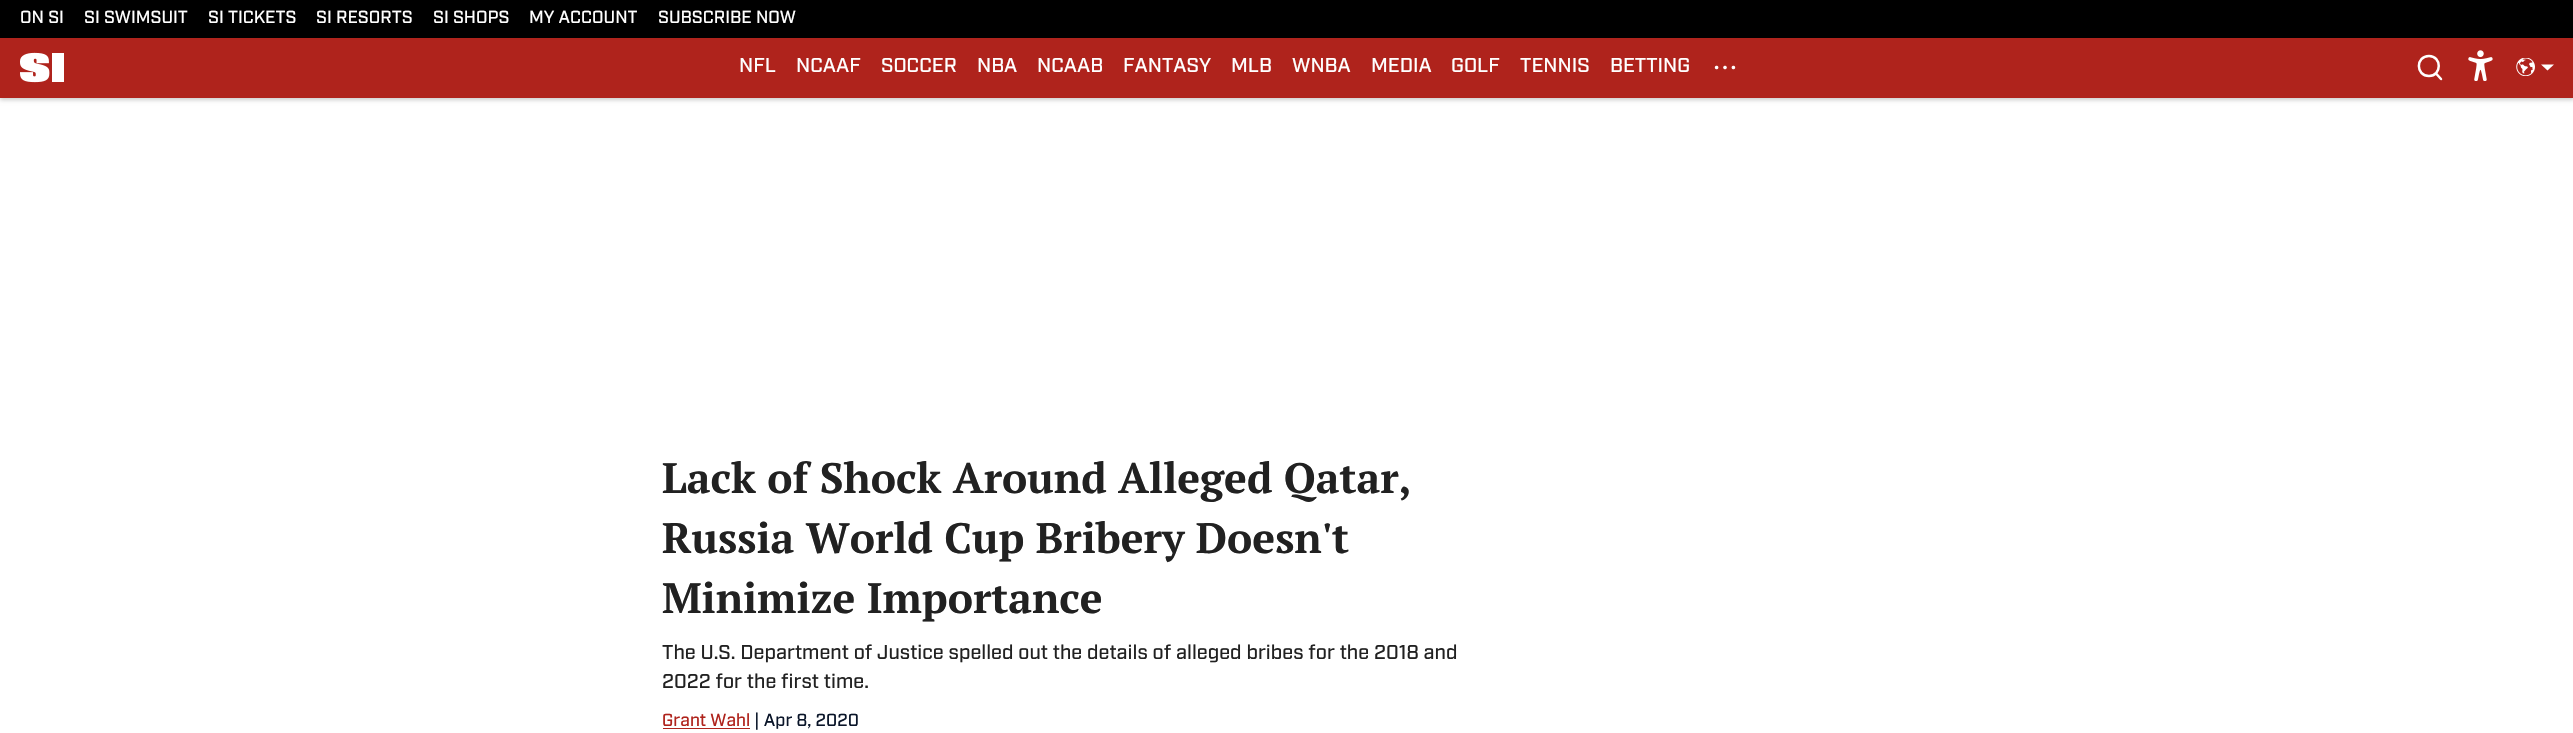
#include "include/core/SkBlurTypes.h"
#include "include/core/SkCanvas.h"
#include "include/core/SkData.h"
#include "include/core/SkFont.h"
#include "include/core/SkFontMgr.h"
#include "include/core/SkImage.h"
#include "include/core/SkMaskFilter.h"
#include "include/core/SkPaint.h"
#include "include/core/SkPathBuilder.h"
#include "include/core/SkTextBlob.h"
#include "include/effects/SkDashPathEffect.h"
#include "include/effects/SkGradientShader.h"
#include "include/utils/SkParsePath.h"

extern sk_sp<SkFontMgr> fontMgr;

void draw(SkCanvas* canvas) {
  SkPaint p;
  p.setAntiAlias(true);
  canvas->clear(SK_ColorWHITE);
  p.setColor(SK_ColorBLACK);
  canvas->drawRect(SkRect::MakeLTRB(0, 0, 2573, 38), p);
  p.setColor(SkColorSetARGB(51, 0, 0, 0));
  p.setMaskFilter(SkMaskFilter::MakeBlur(kNormal_SkBlurStyle, 2));
  canvas->drawRect(SkRect::MakeLTRB(0, 40, 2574, 100), p);
  p.setMaskFilter(nullptr);
  p.setColor(SkColorSetRGB(175, 35, 28));
  canvas->drawRect(SkRect::MakeLTRB(0, 38, 2573, 98), p);
  canvas->drawImageRect(SkImages::DeferredFromEncodedData(SkData::MakeFromFileName("images/1.png")), SkRect::MakeLTRB(20, 52, 64, 83), SkSamplingOptions());
  canvas->drawImageRect(SkImages::DeferredFromEncodedData(SkData::MakeFromFileName("images/2.png")), SkRect::MakeLTRB(1714, 65, 1736, 70), SkSamplingOptions());
  p.setStyle(SkPaint::kStroke_Style);
  p.setStrokeWidth(2.5f);
  p.setStrokeCap(SkPaint::kRound_Cap);
  p.setStrokeJoin(SkPaint::kRound_Join);
  p.setColor(SK_ColorWHITE);
  canvas->drawPath(SkPathBuilder().moveTo(2429, 76).cubicTo(2442, 76, 2442, 56, 2429, 56).cubicTo(2415.5f, 56, 2415.5f, 76, 2429, 76).close().moveTo(2441, 79).lineTo(2436, 73.5f).detach(), p);
  canvas->drawImageRect(SkImages::DeferredFromEncodedData(SkData::MakeFromFileName("images/3.png")), SkRect::MakeLTRB(2468, 50, 2493, 81), SkSamplingOptions());
  canvas->drawImageRect(SkImages::DeferredFromEncodedData(SkData::MakeFromFileName("images/4.png")), SkRect::MakeLTRB(2516, 58, 2535, 76), SkSamplingOptions());
  p.setStyle(SkPaint::kFill_Style);
  canvas->drawPath(SkPathBuilder(SkPathFillType::kEvenOdd).moveTo(2541, 64.5f).lineTo(2547.5f, 70.5f).lineTo(2554, 64.5f).close().detach(), p);
  p.setColor(SkColorSetRGB(175, 35, 28));
  canvas->drawRect(SkRect::MakeLTRB(663, 728, 750, 729), p);
  SkFont font1(fontMgr->matchFamilyStyle("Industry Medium", SkFontStyle(500, SkFontStyle::kNormal_Width, SkFontStyle::kUpright_Slant)), 17.5f);
  font1.setSubpixel(true);
  p.setColor(SK_ColorWHITE);
  canvas->drawString("ON SI", 20, 23, font1, p);
  canvas->drawString("SI SWIMSUIT", 84, 23, font1, p);
  canvas->drawString("SI TICKETS", 208, 23, font1, p);
  canvas->drawString("SI RESORTS", 316, 23, font1, p);
  canvas->drawString("SI SHOPS", 433, 23, font1, p);
  canvas->drawString("MY ACCOUNT", 529, 23, font1, p);
  canvas->drawString("SUBSCRIBE NOW", 658, 23, font1, p);
  SkFont font2(fontMgr->matchFamilyStyle("Industry Medium", SkFontStyle(500, SkFontStyle::kNormal_Width, SkFontStyle::kUpright_Slant)), 20);
  font2.setSubpixel(true);
  canvas->drawString("NFL", 739, 72, font2, p);
  canvas->drawString("NCAAF", 796, 72, font2, p);
  canvas->drawString("SOCCER", 881, 72, font2, p);
  canvas->drawString("NBA", 977, 72, font2, p);
  canvas->drawString("NCAAB", 1037, 72, font2, p);
  canvas->drawString("FANTASY", 1123, 72, font2, p);
  canvas->drawString("MLB", 1231, 72, font2, p);
  canvas->drawString("WNBA", 1292, 72, font2, p);
  canvas->drawString("MEDIA", 1371, 72, font2, p);
  canvas->drawString("GOLF", 1451, 72, font2, p);
  canvas->drawString("TENNIS", 1520, 72, font2, p);
  canvas->drawString("BETTING", 1610, 72, font2, p);
  SkFont font3(fontMgr->matchFamilyStyle("PT Serif", SkFontStyle::Bold()), 42.5f);
  font3.setSubpixel(true);
  p.setColor(SkColorSetRGB(33, 33, 33));
  canvas->drawString("Lack of Shock Around Alleged Qatar,", 662, 493, font3, p);
  canvas->drawString("Russia World Cup Bribery Doesn't", 662, 553, font3, p);
  canvas->drawString("Minimize Importance", 662, 613, font3, p);
  canvas->drawString("The U.S. Department of Justice spelled out the details of alleged bribes for the 2018 and", 662, 659, font2, p);
  canvas->drawString("2022 for the first time.", 662, 688, font2, p);
  p.setColor(SkColorSetRGB(175, 35, 28));
  canvas->drawString("Grant Wahl", 662, 726, font1, p);
  p.setColor(SkColorSetRGB(10, 21, 41));
  canvas->drawString("| Apr 8, 2020", 754, 726, font1, p);
}
